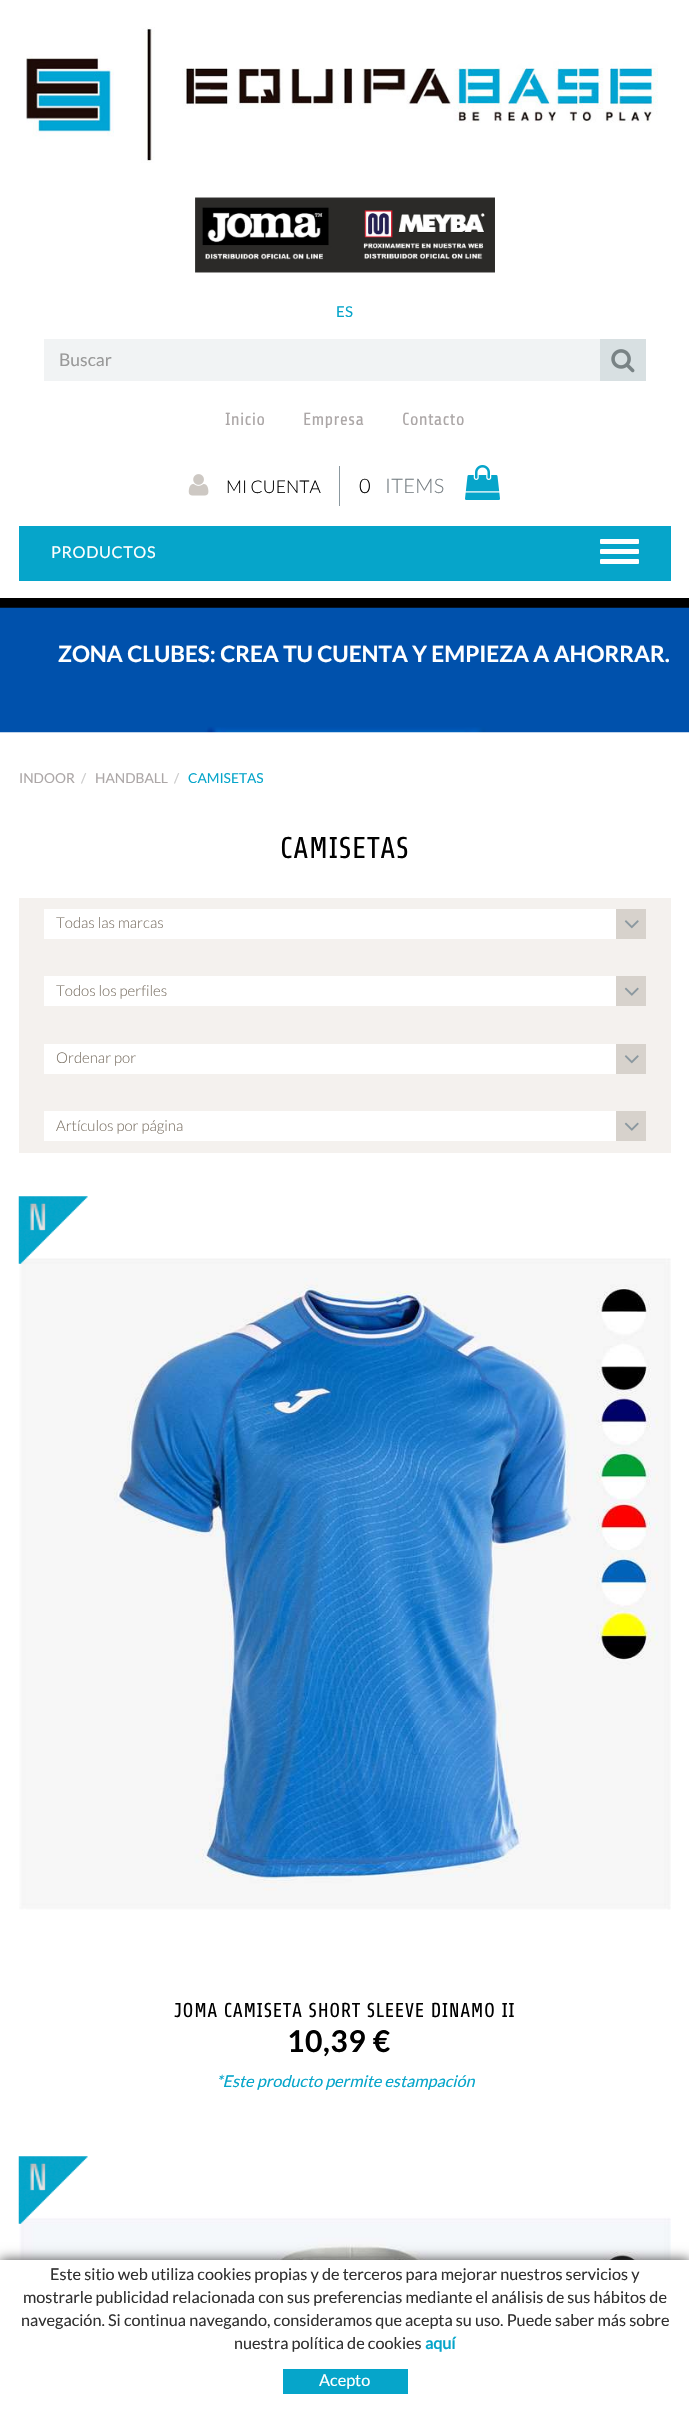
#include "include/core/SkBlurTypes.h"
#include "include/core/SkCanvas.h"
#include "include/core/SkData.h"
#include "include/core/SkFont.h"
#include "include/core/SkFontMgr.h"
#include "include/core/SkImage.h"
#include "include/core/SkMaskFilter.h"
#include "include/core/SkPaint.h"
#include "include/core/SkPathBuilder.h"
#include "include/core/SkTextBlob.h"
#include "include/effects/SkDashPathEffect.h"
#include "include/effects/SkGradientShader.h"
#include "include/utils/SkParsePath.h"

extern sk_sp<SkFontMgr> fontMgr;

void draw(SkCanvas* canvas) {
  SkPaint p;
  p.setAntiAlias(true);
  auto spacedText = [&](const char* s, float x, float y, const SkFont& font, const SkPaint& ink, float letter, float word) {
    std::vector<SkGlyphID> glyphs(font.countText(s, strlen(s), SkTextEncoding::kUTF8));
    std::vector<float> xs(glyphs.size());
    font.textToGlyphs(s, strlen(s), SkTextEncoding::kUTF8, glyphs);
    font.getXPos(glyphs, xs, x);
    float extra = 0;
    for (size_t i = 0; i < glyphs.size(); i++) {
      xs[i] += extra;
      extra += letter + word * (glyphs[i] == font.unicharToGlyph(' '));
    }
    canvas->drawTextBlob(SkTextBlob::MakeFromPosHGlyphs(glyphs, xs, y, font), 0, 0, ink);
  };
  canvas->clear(SK_ColorWHITE);
  canvas->drawImageRect(SkImages::DeferredFromEncodedData(SkData::MakeFromFileName("images/1.png")), SkRect::MakeLTRB(26, 27, 658, 163), SkSamplingOptions());
  canvas->drawImageRect(SkImages::DeferredFromEncodedData(SkData::MakeFromFileName("images/2.png")), SkRect::MakeLTRB(195, 197, 495, 273), SkSamplingOptions());
  p.setColor(SkColorSetRGB(241, 243, 244));
  canvas->drawRect(SkRect::MakeLTRB(44, 339, 600, 381), p);
  p.setColor(SkColorSetRGB(216, 224, 226));
  canvas->drawRect(SkRect::MakeLTRB(600, 339, 646, 381), p);
  canvas->drawImageRect(SkImages::DeferredFromEncodedData(SkData::MakeFromFileName("images/3.png")), SkRect::MakeLTRB(611, 349, 635, 373), SkSamplingOptions());
  p.setColor(SkColorSetRGB(139, 152, 159));
  canvas->drawRect(SkRect::MakeLTRB(339, 466, 340, 506), p);
  canvas->drawImageRect(SkImages::DeferredFromEncodedData(SkData::MakeFromFileName("images/4.png")), SkRect::MakeLTRB(188, 474, 209, 496), SkSamplingOptions());
  canvas->drawImageRect(SkImages::DeferredFromEncodedData(SkData::MakeFromFileName("images/5.png")), SkRect::MakeLTRB(465, 465, 500, 500), SkSamplingOptions());
  p.setColor(SK_ColorBLACK);
  canvas->drawRect(SkRect::MakeLTRB(0, 598, 689, 608), p);
  p.setColor(SkColorSetRGB(6, 165, 202));
  canvas->drawRect(SkRect::MakeLTRB(19, 526, 671, 581), p);
  p.setColor(SK_ColorWHITE);
  canvas->drawRoundRect(SkRect::MakeLTRB(600, 539, 639, 544), 1, 1, p);
  canvas->drawRoundRect(SkRect::MakeLTRB(600, 549, 639, 554), 1, 1, p);
  canvas->drawRoundRect(SkRect::MakeLTRB(600, 559, 639, 564), 1, 1, p);
  canvas->drawImageRect(SkImages::DeferredFromEncodedData(SkData::MakeFromFileName("images/6.png")), SkRect::MakeLTRB(0, 607, 689, 733), SkSamplingOptions());
  p.setColor(SkColorSetRGB(244, 241, 238));
  canvas->drawRect(SkRect::MakeLTRB(19, 898, 671, 1153), p);
  p.setColor(SK_ColorWHITE);
  canvas->drawRect(SkRect::MakeLTRB(44, 909, 616, 939), p);
  p.setColor(SkColorSetRGB(215, 210, 204));
  canvas->drawRect(SkRect::MakeLTRB(616, 909, 646, 939), p);
  canvas->drawImageRect(SkImages::DeferredFromEncodedData(SkData::MakeFromFileName("images/7.png")), SkRect::MakeLTRB(624, 920, 639, 929), SkSamplingOptions());
  p.setColor(SK_ColorWHITE);
  canvas->drawRect(SkRect::MakeLTRB(44, 976, 616, 1006), p);
  p.setColor(SkColorSetRGB(215, 210, 204));
  canvas->drawRect(SkRect::MakeLTRB(616, 976, 646, 1006), p);
  canvas->drawImageRect(SkImages::DeferredFromEncodedData(SkData::MakeFromFileName("images/8.png")), SkRect::MakeLTRB(624, 987, 639, 996), SkSamplingOptions());
  p.setColor(SK_ColorWHITE);
  canvas->drawRect(SkRect::MakeLTRB(44, 1044, 616, 1074), p);
  p.setColor(SkColorSetRGB(215, 210, 204));
  canvas->drawRect(SkRect::MakeLTRB(616, 1044, 646, 1074), p);
  canvas->drawImageRect(SkImages::DeferredFromEncodedData(SkData::MakeFromFileName("images/7.png")), SkRect::MakeLTRB(624, 1055, 639, 1064), SkSamplingOptions());
  p.setColor(SK_ColorWHITE);
  canvas->drawRect(SkRect::MakeLTRB(44, 1111, 616, 1141), p);
  p.setColor(SkColorSetRGB(215, 210, 204));
  canvas->drawRect(SkRect::MakeLTRB(616, 1111, 646, 1141), p);
  canvas->drawImageRect(SkImages::DeferredFromEncodedData(SkData::MakeFromFileName("images/8.png")), SkRect::MakeLTRB(624, 1122, 639, 1131), SkSamplingOptions());
  canvas->drawImageRect(SkImages::DeferredFromEncodedData(SkData::MakeFromFileName("images/10.png")), SkRect::MakeLTRB(19, 1258, 671, 1910), SkSamplingOptions());
  canvas->drawImageRect(SkImages::DeferredFromEncodedData(SkData::MakeFromFileName("images/9.png")), SkRect::MakeLTRB(18, 1196, 88, 1264), SkSamplingOptions());
  canvas->drawImageRect(SkImages::DeferredFromEncodedData(SkData::MakeFromFileName("images/12.png")), SkRect::MakeLTRB(19, 2216, 671, 2260), SkSamplingOptions());
  canvas->drawImageRect(SkImages::DeferredFromEncodedData(SkData::MakeFromFileName("images/11.png")), SkRect::MakeLTRB(18, 2156, 88, 2224), SkSamplingOptions());
  p.setColor(SkColorSetRGB(68, 68, 68));
  p.setMaskFilter(SkMaskFilter::MakeBlur(kNormal_SkBlurStyle, 6));
  canvas->drawRect(SkRect::MakeLTRB(0, 2260, 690, 2410), p);
  p.setMaskFilter(nullptr);
  p.setColor(SK_ColorWHITE);
  canvas->drawRect(SkRect::MakeLTRB(0, 2260, 689, 2410), p);
  p.setColor(SkColorSetRGB(6, 165, 202));
  canvas->drawRect(SkRect::MakeLTRB(283, 2369, 408, 2394), p);
  SkFont font1(fontMgr->matchFamilyStyle("Lato", SkFontStyle::Normal()), 15);
  font1.setSubpixel(true);
  spacedText("ES", 336, 317, font1, p, 0.25f, 0);
  SkFont font2(fontMgr->matchFamilyStyle("Lato", SkFontStyle::Normal()), 17.5f);
  font2.setSubpixel(true);
  p.setColor(SkColorSetRGB(153, 153, 153));
  canvas->drawString("Buscar", 59, 366, font2, p);
  SkFont font3(fontMgr->matchFamilyStyle("Share", SkFontStyle::Normal()), 17.5f);
  font3.setSubpixel(true);
  p.setColor(SkColorSetRGB(172, 167, 167));
  spacedText("Inicio", 225, 425, font3, p, 0.25f, 0);
  spacedText("Empresa", 303, 425, font3, p, 0.25f, 0);
  spacedText("Contacto", 402, 425, font3, p, 0.25f, 0);
  SkFont font4(fontMgr->matchFamilyStyle("Lato", SkFontStyle(300, SkFontStyle::kNormal_Width, SkFontStyle::kUpright_Slant)), 17.5f);
  font4.setSubpixel(true);
  p.setColor(SK_ColorBLACK);
  canvas->drawString("MI CUENTA", 226, 493, font4, p);
  SkFont font5(fontMgr->matchFamilyStyle("Lato", SkFontStyle(300, SkFontStyle::kNormal_Width, SkFontStyle::kUpright_Slant)), 20);
  font5.setSubpixel(true);
  spacedText("0", 359, 493, font5, p, 0.25f, 0);
  p.setColor(SkColorSetRGB(118, 126, 131));
  spacedText("ITEMS", 385, 493, font5, p, 0.25f, 0);
  SkFont font6(fontMgr->matchFamilyStyle("Lato", SkFontStyle::Normal()), 16.25f);
  font6.setSubpixel(true);
  p.setColor(SK_ColorWHITE);
  spacedText("PRODUCTOS", 51, 558, font6, p, 0.6f, 0);
  SkFont font7(fontMgr->matchFamilyStyle("Lato", SkFontStyle::Bold()), 22.5f);
  font7.setSubpixel(true);
  canvas->drawString("ZONA CLUBES: CREA TU CUENTA Y EMPIEZA A AHORRAR.", 58, 662, font7, p);
  SkFont font8(fontMgr->matchFamilyStyle("Lato", SkFontStyle::Normal()), 13.75f);
  font8.setSubpixel(true);
  p.setColor(SkColorSetRGB(172, 167, 167));
  canvas->drawString("INDOOR", 19, 783, font8, p);
  p.setColor(SkColorSetRGB(204, 204, 204));
  canvas->drawString("/", 81, 783, font8, p);
  p.setColor(SkColorSetRGB(172, 167, 167));
  canvas->drawString("HANDBALL", 95, 783, font8, p);
  p.setColor(SkColorSetRGB(204, 204, 204));
  canvas->drawString("/", 174, 783, font8, p);
  p.setColor(SkColorSetRGB(6, 165, 202));
  canvas->drawString("CAMISETAS", 188, 783, font8, p);
  SkFont font9(fontMgr->matchFamilyStyle("Share", SkFontStyle::Normal()), 30);
  font9.setSubpixel(true);
  p.setColor(SK_ColorBLACK);
  spacedText("CAMISETAS", 280, 858, font9, p, 0.6f, 0);
  SkFont font10(fontMgr->matchFamilyStyle("Lato", SkFontStyle(300, SkFontStyle::kNormal_Width, SkFontStyle::kUpright_Slant)), 15);
  font10.setSubpixel(true);
  p.setColor(SkColorSetRGB(127, 118, 106));
  canvas->drawString("Todas las marcas", 56, 928, font10, p);
  canvas->drawString("Todos los perfiles", 56, 996, font10, p);
  canvas->drawString("Ordenar por", 56, 1063, font10, p);
  canvas->drawString("Artículos por página", 56, 1131, font10, p);
  SkFont font11(fontMgr->matchFamilyStyle("Share", SkFontStyle::Normal()), 20);
  font11.setSubpixel(true);
  p.setColor(SK_ColorBLACK);
  spacedText("JOMA CAMISETA SHORT SLEEVE DINAMO II", 174, 2017, font11, p, 0.6f, 0);
  SkFont font12(fontMgr->matchFamilyStyle("Lato", SkFontStyle::Bold()), 30);
  font12.setSubpixel(true);
  spacedText("10,39 €", 287, 2052, font12, p, 0.6f, 0);
  SkFont font13(fontMgr->matchFamilyStyle("Lato", SkFontStyle::Italic()), 16.25f);
  font13.setSubpixel(true);
  p.setColor(SkColorSetRGB(6, 165, 202));
  canvas->drawString("*Este producto permite estampación", 216, 2087, font13, p);
  p.setColor(SkColorSetRGB(49, 49, 49));
  canvas->drawString("Este sitio web utiliza cookies propias y de terceros para mejorar nuestros servicios y", 50, 2280, font6, p);
  canvas->drawString("mostrarle publicidad relacionada con sus preferencias mediante el análisis de sus hábitos de", 23, 2303, font6, p);
  canvas->drawString("navegación. Si continua navegando, consideramos que acepta su uso. Puede saber más sobre", 21, 2326, font6, p);
  canvas->drawString("nuestra política de cookies", 234, 2349, font6, p);
  SkFont font14(fontMgr->matchFamilyStyle("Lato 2", SkFontStyle::Bold()), 16.25f);
  font14.setSubpixel(true);
  p.setColor(SkColorSetRGB(6, 165, 202));
  canvas->drawString("aquí", 425, 2349, font14, p);
  p.setColor(SK_ColorWHITE);
  canvas->drawString("Acepto", 319, 2386, font6, p);
}
